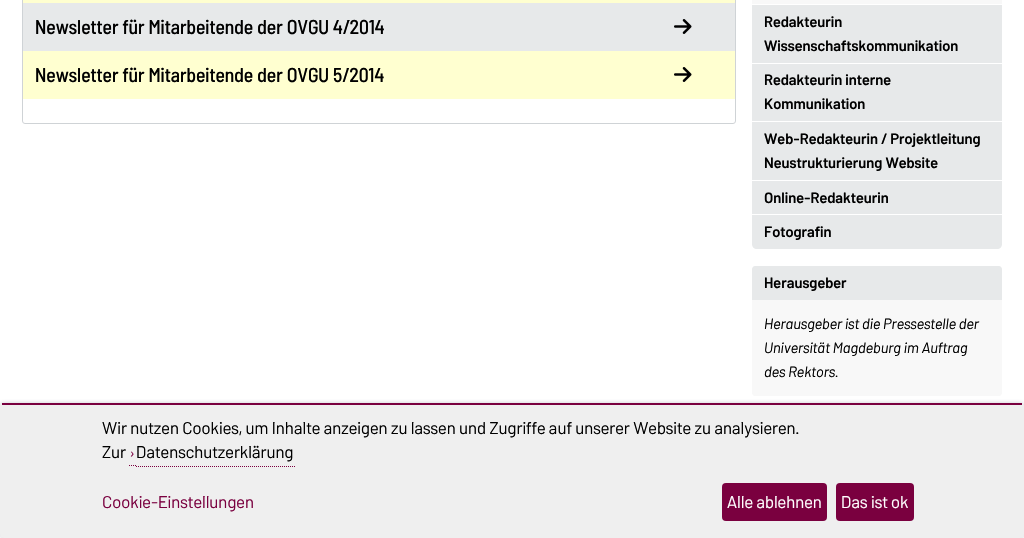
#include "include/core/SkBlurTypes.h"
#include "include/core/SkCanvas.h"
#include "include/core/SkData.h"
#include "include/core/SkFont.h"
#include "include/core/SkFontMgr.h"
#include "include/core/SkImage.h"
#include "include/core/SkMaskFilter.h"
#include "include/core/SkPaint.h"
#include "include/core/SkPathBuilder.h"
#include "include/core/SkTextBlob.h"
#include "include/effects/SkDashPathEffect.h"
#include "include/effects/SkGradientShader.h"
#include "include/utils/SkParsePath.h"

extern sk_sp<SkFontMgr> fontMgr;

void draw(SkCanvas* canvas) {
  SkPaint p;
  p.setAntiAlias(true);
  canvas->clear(SK_ColorWHITE);
  p.setStyle(SkPaint::kStroke_Style);
  p.setStrokeWidth(1);
  p.setColor(SkColorSetRGB(207, 211, 214));
  canvas->drawRoundRect(SkRect::MakeLTRB(22.5f, -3.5f, 735.5f, 123.5f), 2.5f, 2.5f, p);
  p.setStyle(SkPaint::kFill_Style);
  p.setColor(SkColorSetRGB(255, 255, 208));
  canvas->drawRect(SkRect::MakeLTRB(23, 0, 735, 3), p);
  p.setColor(SkColorSetRGB(231, 233, 234));
  canvas->drawRect(SkRect::MakeLTRB(23, 3, 735, 51), p);
  canvas->drawImageRect(SkImages::DeferredFromEncodedData(SkData::MakeFromFileName("images/1.png")), SkRect::MakeLTRB(674, 19, 692, 34), SkSamplingOptions());
  p.setColor(SkColorSetRGB(255, 255, 208));
  canvas->drawRect(SkRect::MakeLTRB(23, 51, 735, 99), p);
  canvas->drawImageRect(SkImages::DeferredFromEncodedData(SkData::MakeFromFileName("images/2.png")), SkRect::MakeLTRB(674, 67, 692, 82), SkSamplingOptions());
  p.setColor(SkColorSetRGB(248, 248, 248));
  canvas->drawRect(SkRect::MakeLTRB(752, 0, 1002, 4), p);
  p.setColor(SkColorSetRGB(231, 233, 234));
  canvas->drawRect(SkRect::MakeLTRB(752, 5, 1002, 63), p);
  canvas->drawRect(SkRect::MakeLTRB(752, 64, 1002, 121), p);
  canvas->drawRect(SkRect::MakeLTRB(752, 122, 1002, 180), p);
  canvas->drawRect(SkRect::MakeLTRB(752, 181, 1002, 214), p);
  canvas->drawPath(SkPathBuilder().moveTo(752, 215).lineTo(1002, 215).lineTo(1002, 244).cubicTo(1002, 247, 1000, 249, 997, 249).lineTo(757, 249).cubicTo(754, 249, 752, 247, 752, 244).close().detach(), p);
  canvas->drawPath(SkPathBuilder().moveTo(755, 266).lineTo(999, 266).cubicTo(1000.5f, 266, 1002, 267.5f, 1002, 269).lineTo(1002, 300).lineTo(752, 300).lineTo(752, 269).cubicTo(752, 267.5f, 753.5f, 266, 755, 266).close().detach(), p);
  p.setColor(SkColorSetRGB(248, 248, 248));
  canvas->drawPath(SkPathBuilder().moveTo(752, 300).lineTo(1002, 300).lineTo(1002, 393).cubicTo(1002, 394.5f, 1000.5f, 396, 999, 396).lineTo(755, 396).cubicTo(753.5f, 396, 752, 394.5f, 752, 393).close().detach(), p);
  p.setColor(SkColorSetARGB(69, 67, 71, 85));
  p.setMaskFilter(SkMaskFilter::MakeBlur(kNormal_SkBlurStyle, 2));
  canvas->drawRoundRect(SkRect::MakeLTRB(0, 403, 1024, 538), 4, 4, p);
  p.setMaskFilter(nullptr);
  p.setColor(SkColorSetRGB(239, 239, 239));
  canvas->drawRoundRect(SkRect::MakeLTRB(0, 403, 1024, 538), 4, 4, p);
  p.setColor(SkColorSetRGB(122, 0, 63));
  canvas->drawRect(SkRect::MakeLTRB(2, 403, 1022, 405), p);
  p.setStyle(SkPaint::kStroke_Style);
  canvas->drawPath(SkPathBuilder().moveTo(129, 465.5f).lineTo(130, 465.5f).moveTo(131, 465.5f).lineTo(132, 465.5f).moveTo(133, 465.5f).lineTo(134, 465.5f).moveTo(135, 465.5f).lineTo(136, 465.5f).detach(), p);
  p.setPathEffect(SkDashPathEffect::Make({{1, 1}}, 0));
  canvas->drawPath(SkPathBuilder().moveTo(136, 466.5f).lineTo(296, 466.5f).detach(), p);
  p.setPathEffect(nullptr);
  p.setStyle(SkPaint::kFill_Style);
  canvas->drawRoundRect(SkRect::MakeLTRB(722, 483, 827, 521), 4, 4, p);
  canvas->drawRoundRect(SkRect::MakeLTRB(836, 483, 914, 521), 4, 4, p);
  SkFont font1(fontMgr->matchFamilyStyle("Barlow Semi Condensed", SkFontStyle(500, SkFontStyle::kNormal_Width, SkFontStyle::kUpright_Slant)), 20);
  font1.setSubpixel(true);
  p.setColor(SK_ColorBLACK);
  canvas->drawString("Newsletter für Mitarbeitende der OVGU 4/2014", 35, 34, font1, p);
  canvas->drawString("Newsletter für Mitarbeitende der OVGU 5/2014", 35, 82, font1, p);
  SkFont font2(fontMgr->matchFamilyStyle("Barlow", SkFontStyle(600, SkFontStyle::kNormal_Width, SkFontStyle::kUpright_Slant)), 14.9f);
  font2.setSubpixel(true);
  canvas->drawString("Redakteurin", 764, 27, font2, p);
  canvas->drawString("Wissenschaftskommunikation", 764, 51, font2, p);
  canvas->drawString("Redakteurin interne", 764, 85, font2, p);
  canvas->drawString("Kommunikation", 764, 109, font2, p);
  canvas->drawString("Web-Redakteurin / Projektleitung", 764, 144, font2, p);
  canvas->drawString("Neustrukturierung Website", 764, 168, font2, p);
  canvas->drawString("Online-Redakteurin", 764, 203, font2, p);
  canvas->drawString("Fotografin", 764, 237, font2, p);
  canvas->drawString("Herausgeber", 764, 288, font2, p);
  SkFont font3(fontMgr->matchFamilyStyle("Barlow", SkFontStyle::Italic()), 14.9f);
  font3.setSubpixel(true);
  canvas->drawString("Herausgeber ist die Pressestelle der", 764, 329, font3, p);
  canvas->drawString("Universität Magdeburg im Auftrag", 764, 353, font3, p);
  canvas->drawString("des Rektors.", 764, 377, font3, p);
  SkFont font4(fontMgr->matchFamilyStyle("Barlow", SkFontStyle::Normal()), 17);
  font4.setSubpixel(true);
  canvas->drawString("Wir nutzen Cookies, um Inhalte anzeigen zu lassen und Zugriffe auf unserer Website zu analysieren.", 102, 434, font4, p);
  canvas->drawString("Zur", 102, 458, font4, p);
  SkFont font5(fontMgr->matchFamilyStyle("Barlow", SkFontStyle::Normal()), 14);
  font5.setSubpixel(true);
  p.setColor(SkColorSetRGB(122, 0, 63));
  canvas->drawString("›", 130, 458, font5, p);
  p.setColor(SK_ColorBLACK);
  canvas->drawString("Datenschutzerklärung", 136, 458, font4, p);
  p.setColor(SkColorSetRGB(122, 0, 63));
  canvas->drawString("Cookie-Einstellungen", 102, 508, font4, p);
  p.setColor(SK_ColorWHITE);
  canvas->drawString("Alle ablehnen", 727, 508, font4, p);
  canvas->drawString("Das ist ok", 841, 508, font4, p);
}
